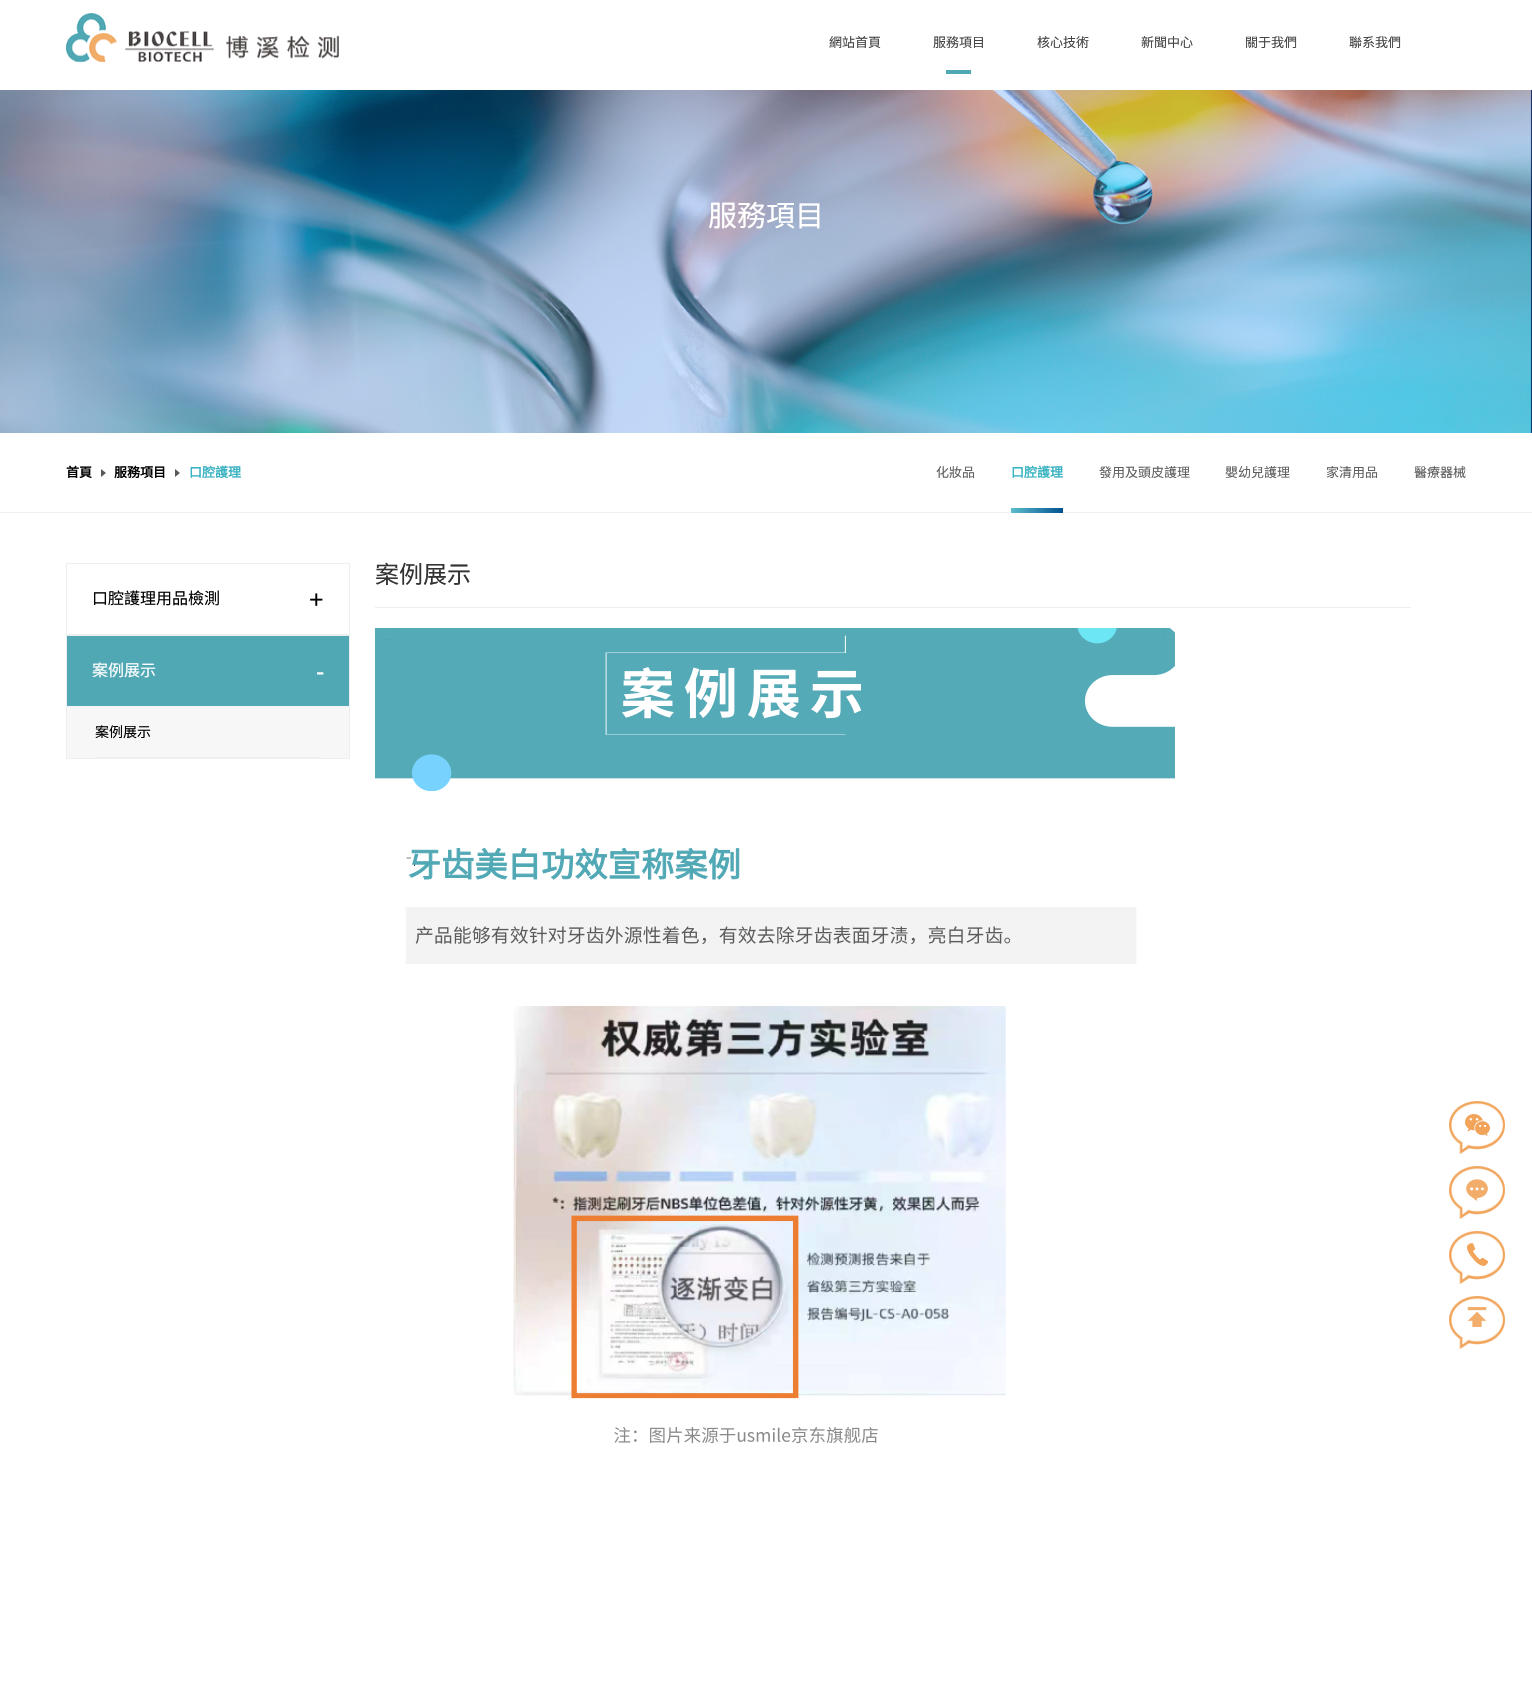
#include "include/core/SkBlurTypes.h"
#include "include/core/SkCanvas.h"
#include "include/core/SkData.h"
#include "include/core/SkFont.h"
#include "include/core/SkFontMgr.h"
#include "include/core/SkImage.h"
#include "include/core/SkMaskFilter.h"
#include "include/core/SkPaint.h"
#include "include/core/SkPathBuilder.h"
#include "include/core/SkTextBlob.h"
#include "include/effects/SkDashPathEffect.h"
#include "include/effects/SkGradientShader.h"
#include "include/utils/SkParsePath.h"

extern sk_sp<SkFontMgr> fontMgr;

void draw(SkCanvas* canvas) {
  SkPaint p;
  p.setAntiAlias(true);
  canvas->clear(SK_ColorWHITE);
  canvas->drawImageRect(SkImages::DeferredFromEncodedData(SkData::MakeFromFileName("images/1.png")), SkRect::MakeLTRB(66, 13, 339, 62), SkSamplingOptions());
  p.setColor(SkColorSetRGB(81, 168, 181));
  canvas->drawRect(SkRect::MakeLTRB(946, 70, 971, 74), p);
  canvas->drawImageRect(SkImages::DeferredFromEncodedData(SkData::MakeFromFileName("images/2.png")), SkRect::MakeLTRB(0, 90, 1532, 433), SkSamplingOptions());
  p.setColor(SkColorSetRGB(238, 240, 243));
  canvas->drawRect(SkRect::MakeLTRB(0, 512, 1532, 513), p);
  canvas->drawImageRect(SkImages::DeferredFromEncodedData(SkData::MakeFromFileName("images/3.png")), SkRect::MakeLTRB(101, 469, 106, 477), SkSamplingOptions());
  canvas->drawImageRect(SkImages::DeferredFromEncodedData(SkData::MakeFromFileName("images/3.png")), SkRect::MakeLTRB(175, 469, 180, 477), SkSamplingOptions());
  {
    const SkColor colors[] = {SkColorSetRGB(93, 189, 205), SkColorSetRGB(1, 81, 144)};
    const float stops[] = {0, 1};
    const SkPoint ends[] = {{1011, 513}, {1063, 508}};
    p.setShader(SkGradientShader::MakeLinear(ends, colors, stops, 2, SkTileMode::kClamp));
    p.setAlpha(255);
  }
  canvas->drawRect(SkRect::MakeLTRB(1011, 508, 1063, 513), p);
  p.setShader(nullptr);
  p.setColor(SkColorSetRGB(238, 238, 238));
  canvas->drawRect(SkRect::MakeLTRB(375, 607, 1411, 608), p);
  canvas->drawImageRect(SkImages::DeferredFromEncodedData(SkData::MakeFromFileName("images/4.png")), SkRect::MakeLTRB(375, 628, 1175, 1444), SkSamplingOptions());
  p.setStyle(SkPaint::kStroke_Style);
  p.setStrokeWidth(1);
  canvas->drawRect(SkRect::MakeLTRB(66.5f, 563.5f, 349.5f, 634.5f), p);
  canvas->drawRect(SkRect::MakeLTRB(66.5f, 635.5f, 349.5f, 758.5f), p);
  p.setStyle(SkPaint::kFill_Style);
  p.setColor(SkColorSetRGB(81, 168, 181));
  canvas->drawRect(SkRect::MakeLTRB(67, 636, 349, 706), p);
  p.setColor(SkColorSetRGB(247, 247, 247));
  canvas->drawRect(SkRect::MakeLTRB(67, 706, 349, 758), p);
  p.setColor(SkColorSetRGB(238, 238, 238));
  canvas->drawRect(SkRect::MakeLTRB(95, 757, 321, 758), p);
  canvas->drawImageRect(SkImages::DeferredFromEncodedData(SkData::MakeFromFileName("images/5.png")), SkRect::MakeLTRB(1449, 1101, 1505, 1154), SkSamplingOptions());
  canvas->drawImageRect(SkImages::DeferredFromEncodedData(SkData::MakeFromFileName("images/6.png")), SkRect::MakeLTRB(1465, 1114, 1490, 1136), SkSamplingOptions());
  canvas->drawImageRect(SkImages::DeferredFromEncodedData(SkData::MakeFromFileName("images/7.png")), SkRect::MakeLTRB(1449, 1166, 1505, 1219), SkSamplingOptions());
  canvas->drawImageRect(SkImages::DeferredFromEncodedData(SkData::MakeFromFileName("images/8.png")), SkRect::MakeLTRB(1466, 1179, 1488, 1201), SkSamplingOptions());
  canvas->drawImageRect(SkImages::DeferredFromEncodedData(SkData::MakeFromFileName("images/7.png")), SkRect::MakeLTRB(1449, 1231, 1505, 1284), SkSamplingOptions());
  canvas->drawImageRect(SkImages::DeferredFromEncodedData(SkData::MakeFromFileName("images/9.png")), SkRect::MakeLTRB(1467, 1243, 1488, 1266), SkSamplingOptions());
  canvas->drawImageRect(SkImages::DeferredFromEncodedData(SkData::MakeFromFileName("images/5.png")), SkRect::MakeLTRB(1449, 1296, 1505, 1349), SkSamplingOptions());
  canvas->drawImageRect(SkImages::DeferredFromEncodedData(SkData::MakeFromFileName("images/10.png")), SkRect::MakeLTRB(1467, 1307, 1487, 1327), SkSamplingOptions());
  SkFont font1(fontMgr->matchFamilyStyle("Noto Sans CJK SC", SkFontStyle::Normal()), 13);
  font1.setSubpixel(true);
  p.setColor(SkColorSetRGB(68, 68, 68));
  canvas->drawString("網站首頁", 829, 47, font1, p);
  canvas->drawString("服務項目", 933, 47, font1, p);
  canvas->drawString("核心技術", 1037, 47, font1, p);
  canvas->drawString("新聞中心", 1141, 47, font1, p);
  canvas->drawString("關于我們", 1245, 47, font1, p);
  canvas->drawString("聯系我們", 1349, 47, font1, p);
  SkFont font2(fontMgr->matchFamilyStyle("Noto Sans CJK SC", SkFontStyle::Normal()), 29);
  font2.setSubpixel(true);
  p.setColor(SK_ColorWHITE);
  canvas->drawString("服", 708, 226, font2, p);
  canvas->save();
  canvas->clipRect(SkRect::MakeLTRB(0, 202, 1532, 231));
  canvas->drawString("務", 737, 226, font2, p);
  canvas->restore();
  canvas->drawString("項目", 766, 226, font2, p);
  SkFont font3(fontMgr->matchFamilyStyle("Noto Sans CJK SC", SkFontStyle::Bold()), 13);
  font3.setSubpixel(true);
  p.setColor(SK_ColorBLACK);
  canvas->drawString("首頁", 66, 477, font3, p);
  canvas->drawString("服務項目", 114, 477, font3, p);
  p.setColor(SkColorSetRGB(59, 179, 194));
  canvas->drawString("口腔護理", 189, 477, font3, p);
  p.setColor(SkColorSetRGB(94, 95, 96));
  canvas->drawString("化妝品", 936, 477, font1, p);
  p.setColor(SkColorSetRGB(59, 179, 194));
  canvas->drawString("口腔護理", 1011, 477, font3, p);
  p.setColor(SkColorSetRGB(94, 95, 96));
  canvas->drawString("發用及頭皮護理", 1099, 477, font1, p);
  canvas->drawString("嬰幼兒護理", 1225, 477, font1, p);
  canvas->drawString("家清用品", 1326, 477, font1, p);
  canvas->drawString("醫療器械", 1414, 477, font1, p);
  SkFont font4(fontMgr->matchFamilyStyle("Noto Sans CJK SC", SkFontStyle::Normal()), 24);
  font4.setSubpixel(true);
  p.setColor(SkColorSetRGB(51, 51, 51));
  canvas->drawString("案例展示", 375, 583, font4, p);
  SkFont font5(fontMgr->matchFamilyStyle("Noto Sans CJK SC", SkFontStyle::Normal()), 16);
  font5.setSubpixel(true);
  p.setColor(SK_ColorBLACK);
  canvas->drawString("口腔護理用品檢測", 92, 604, font5, p);
  SkFont font6(fontMgr->matchFamilyStyle("Liberation Sans", SkFontStyle::Normal()), 25);
  font6.setSubpixel(true);
  canvas->drawString("+", 309, 608, font6, p);
  p.setColor(SK_ColorWHITE);
  canvas->drawString("案例展示", 92, 676, font5, p);
  canvas->drawString("-", 316, 680, font6, p);
  SkFont font7(fontMgr->matchFamilyStyle("Noto Sans CJK SC", SkFontStyle::Normal()), 14);
  font7.setSubpixel(true);
  p.setColor(SK_ColorBLACK);
  canvas->drawString("案例展示", 95, 737, font7, p);
}
